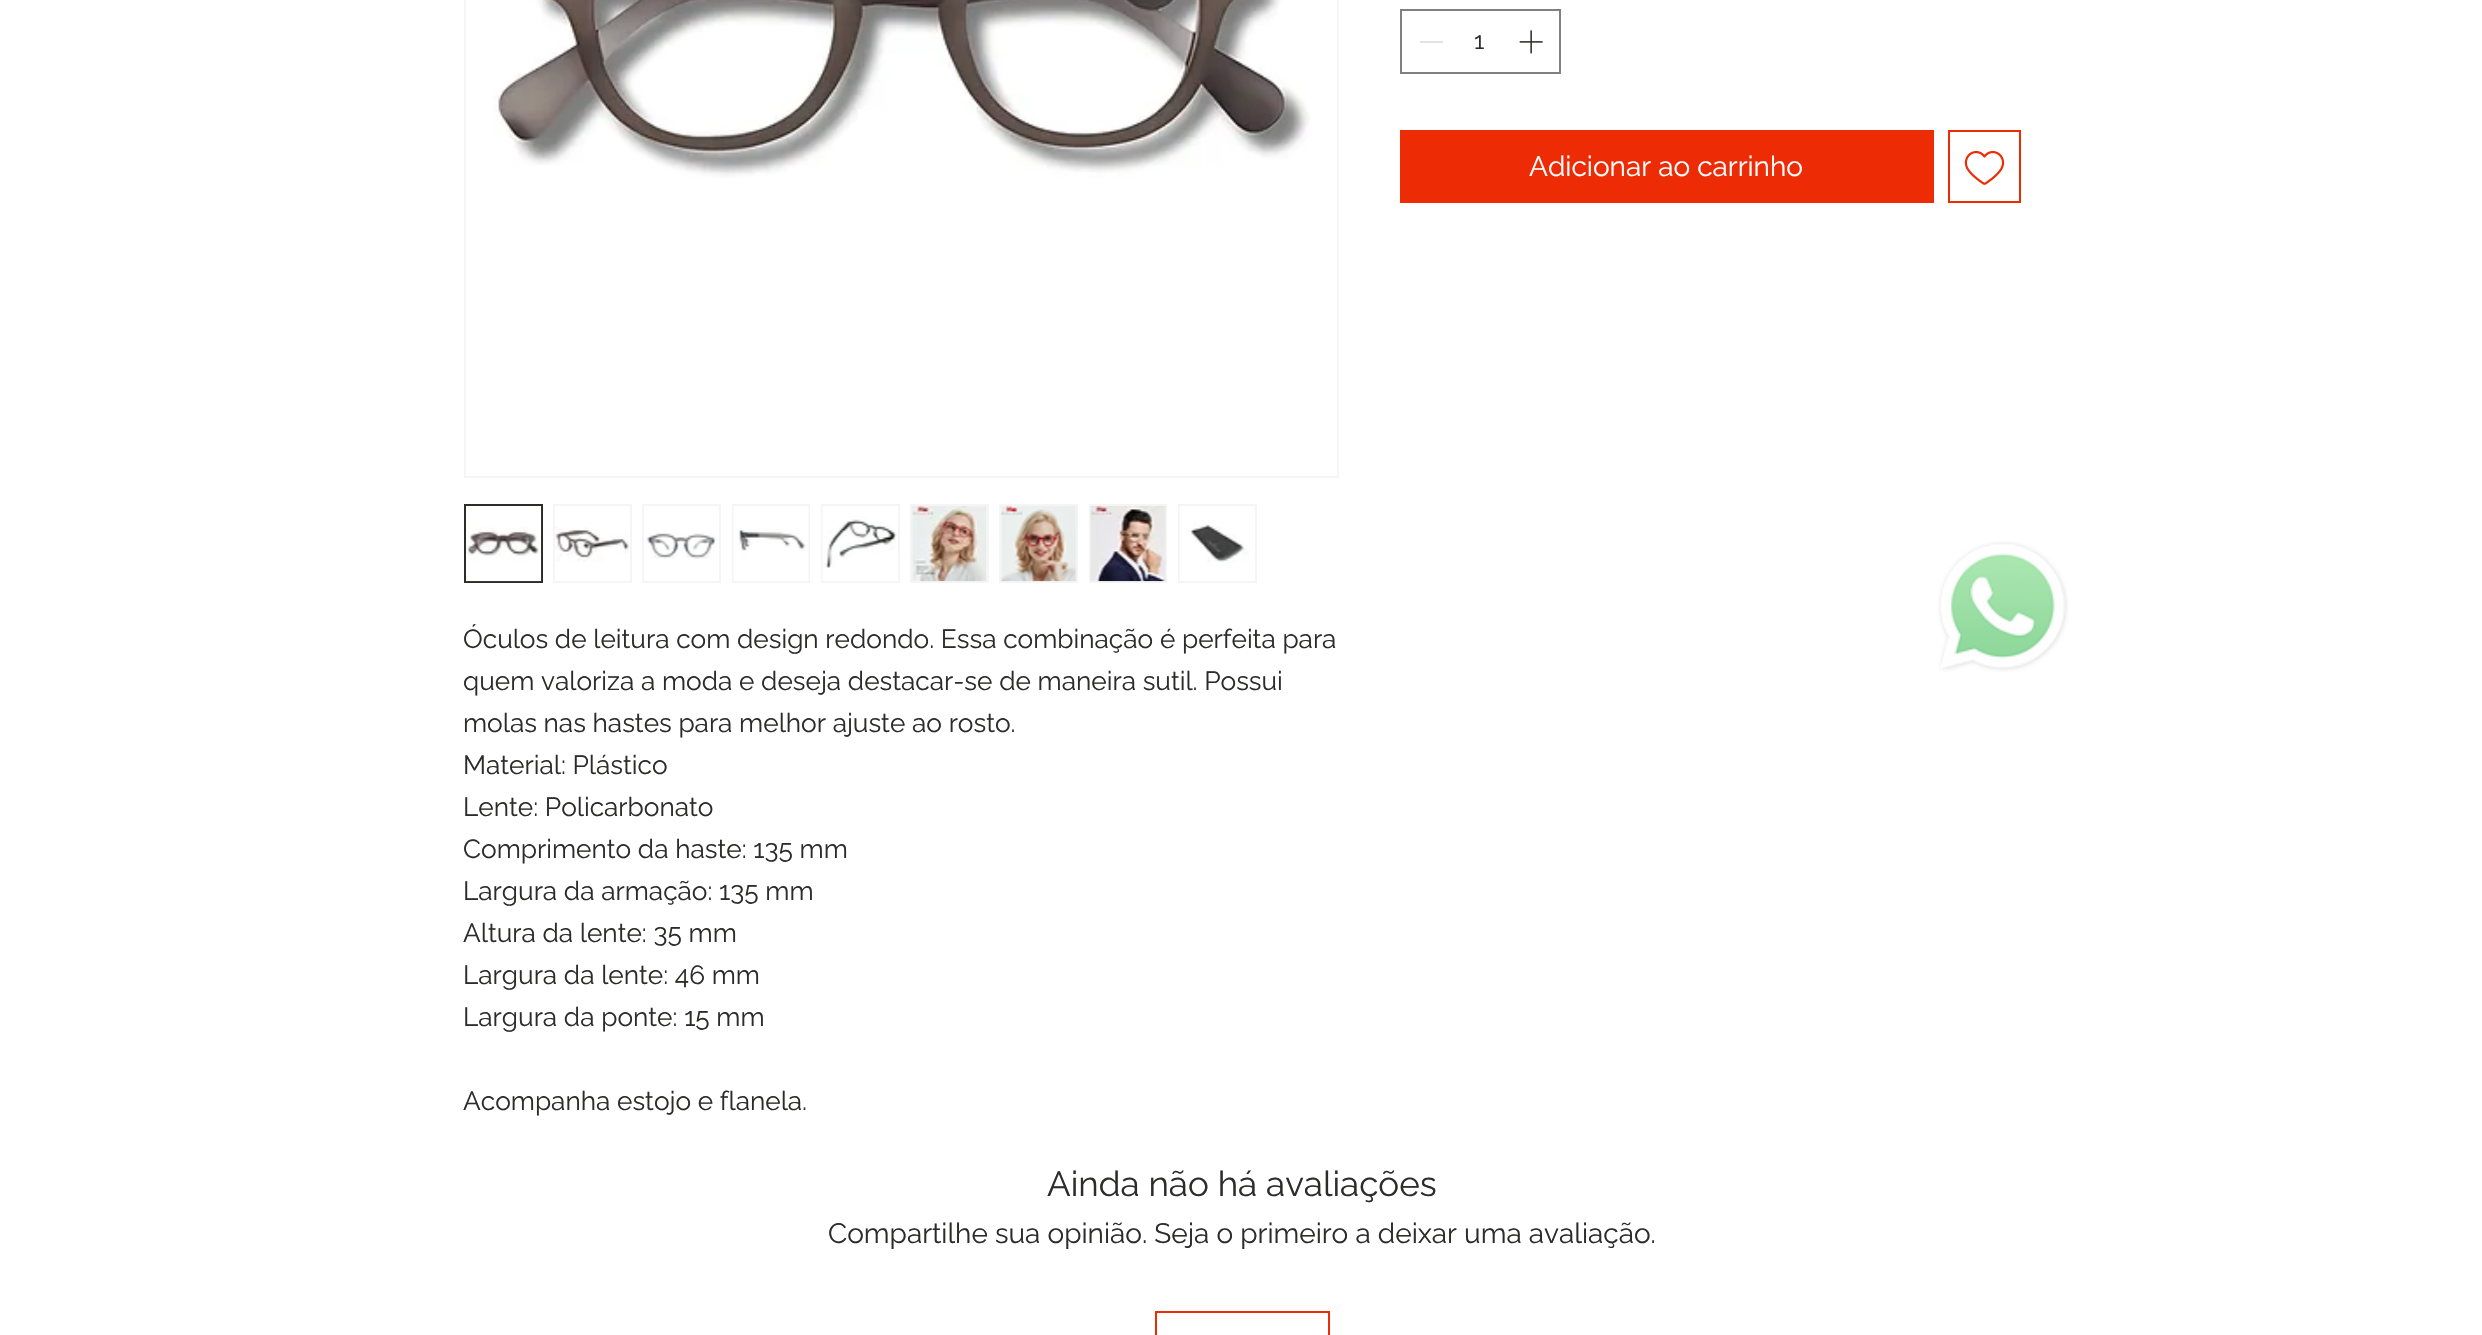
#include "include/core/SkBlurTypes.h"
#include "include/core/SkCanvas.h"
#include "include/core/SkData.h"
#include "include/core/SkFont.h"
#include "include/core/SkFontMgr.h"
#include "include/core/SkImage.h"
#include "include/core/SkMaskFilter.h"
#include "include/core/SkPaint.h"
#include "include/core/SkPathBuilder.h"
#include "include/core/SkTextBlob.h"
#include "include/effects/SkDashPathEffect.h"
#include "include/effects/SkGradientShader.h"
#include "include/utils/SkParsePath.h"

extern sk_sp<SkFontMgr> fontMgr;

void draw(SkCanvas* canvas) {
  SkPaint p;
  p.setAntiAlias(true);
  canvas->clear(SK_ColorWHITE);
  p.setStyle(SkPaint::kStroke_Style);
  p.setStrokeWidth(2);
  p.setColor(SkColorSetRGB(128, 128, 128));
  canvas->drawRect(SkRect::MakeLTRB(1401, 10, 1560, 73), p);
  p.setStyle(SkPaint::kFill_Style);
  p.setColor(SkColorSetRGB(227, 227, 227));
  canvas->drawRect(SkRect::MakeLTRB(1420, 41, 1443, 43), p);
  canvas->drawImageRect(SkImages::DeferredFromEncodedData(SkData::MakeFromFileName("images/1.png")), SkRect::MakeLTRB(1519, 30, 1543, 54), SkSamplingOptions());
  p.setColor(SkColorSetRGB(237, 43, 5));
  canvas->drawRect(SkRect::MakeLTRB(1400, 130, 1934, 203), p);
  p.setStyle(SkPaint::kStroke_Style);
  canvas->drawRect(SkRect::MakeLTRB(1949, 131, 2020, 202), p);
  canvas->drawImageRect(SkImages::DeferredFromEncodedData(SkData::MakeFromFileName("images/2.png")), SkRect::MakeLTRB(1964, 151, 2005, 185), SkSamplingOptions());
  p.setColor(SkColorSetRGB(245, 245, 245));
  canvas->drawRect(SkRect::MakeLTRB(465, -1, 1338, 477), p);
  canvas->drawImageRect(SkImages::DeferredFromEncodedData(SkData::MakeFromFileName("images/3.png")), SkRect::MakeLTRB(493, 0, 1310, 178), SkSamplingOptions());
  p.setColor(SkColorSetRGB(44, 44, 43));
  canvas->drawRect(SkRect::MakeLTRB(465, 505, 542, 582), p);
  canvas->drawImageRect(SkImages::DeferredFromEncodedData(SkData::MakeFromFileName("images/4.png")), SkRect::MakeLTRB(466, 506, 542, 582), SkSamplingOptions());
  p.setColor(SkColorSetRGB(245, 245, 245));
  canvas->drawRect(SkRect::MakeLTRB(554, 505, 631, 582), p);
  canvas->drawImageRect(SkImages::DeferredFromEncodedData(SkData::MakeFromFileName("images/5.png")), SkRect::MakeLTRB(555, 527, 629, 562), SkSamplingOptions());
  canvas->drawRect(SkRect::MakeLTRB(643, 505, 720, 582), p);
  canvas->drawImageRect(SkImages::DeferredFromEncodedData(SkData::MakeFromFileName("images/6.png")), SkRect::MakeLTRB(646, 533, 717, 559), SkSamplingOptions());
  canvas->drawRect(SkRect::MakeLTRB(733, 505, 809, 582), p);
  canvas->drawImageRect(SkImages::DeferredFromEncodedData(SkData::MakeFromFileName("images/7.png")), SkRect::MakeLTRB(733, 506, 809, 581), SkSamplingOptions());
  canvas->drawRect(SkRect::MakeLTRB(822, 505, 899, 582), p);
  canvas->drawImageRect(SkImages::DeferredFromEncodedData(SkData::MakeFromFileName("images/8.png")), SkRect::MakeLTRB(822, 506, 897, 581), SkSamplingOptions());
  canvas->drawRect(SkRect::MakeLTRB(911, 505, 988, 582), p);
  canvas->drawImageRect(SkImages::DeferredFromEncodedData(SkData::MakeFromFileName("images/9.png")), SkRect::MakeLTRB(911, 506, 987, 582), SkSamplingOptions());
  canvas->drawRect(SkRect::MakeLTRB(1000, 505, 1077, 582), p);
  canvas->drawImageRect(SkImages::DeferredFromEncodedData(SkData::MakeFromFileName("images/10.png")), SkRect::MakeLTRB(1000, 506, 1077, 582), SkSamplingOptions());
  canvas->drawRect(SkRect::MakeLTRB(1090, 505, 1166, 582), p);
  canvas->drawImageRect(SkImages::DeferredFromEncodedData(SkData::MakeFromFileName("images/11.png")), SkRect::MakeLTRB(1090, 506, 1166, 582), SkSamplingOptions());
  canvas->drawRect(SkRect::MakeLTRB(1179, 505, 1256, 582), p);
  canvas->drawImageRect(SkImages::DeferredFromEncodedData(SkData::MakeFromFileName("images/12.png")), SkRect::MakeLTRB(1179, 506, 1249, 581), SkSamplingOptions());
  p.setColor(SkColorSetRGB(237, 43, 5));
  canvas->drawRect(SkRect::MakeLTRB(1156, 1312, 1329, 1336), p);
  canvas->drawImageRect(SkImages::DeferredFromEncodedData(SkData::MakeFromFileName("images/13.png")), SkRect::MakeLTRB(1938, 541, 2069, 672), SkSamplingOptions());
  SkFont font1(fontMgr->matchFamilyStyle("Raleway", SkFontStyle::Normal()), 24);
  font1.setSubpixel(true);
  p.setStyle(SkPaint::kFill_Style);
  p.setColor(SkColorSetRGB(44, 44, 43));
  canvas->drawString("1", 1474, 49, font1, p);
  SkFont font2(fontMgr->matchFamilyStyle("Raleway", SkFontStyle::Normal()), 28);
  font2.setSubpixel(true);
  p.setColor(SK_ColorWHITE);
  canvas->drawString("Adicionar ao carrinho", 1529, 176, font2, p);
  SkFont font3(fontMgr->matchFamilyStyle("Raleway", SkFontStyle::Normal()), 26.25f);
  font3.setSubpixel(true);
  p.setColor(SkColorSetRGB(44, 44, 43));
  canvas->drawString("Óculos de leitura com design redondo. Essa combinação é perfeita para", 463, 648, font3, p);
  canvas->drawString("quem valoriza a moda e deseja destacar-se de maneira sutil. Possui", 463, 690, font3, p);
  canvas->drawString("molas nas hastes para melhor ajuste ao rosto.", 463, 732, font3, p);
  canvas->drawString("Material: Plástico", 463, 774, font3, p);
  canvas->drawString("Lente: Policarbonato", 463, 816, font3, p);
  canvas->drawString("Comprimento da haste: 135 mm", 463, 858, font3, p);
  canvas->drawString("Largura da armação: 135 mm", 463, 900, font3, p);
  canvas->drawString("Altura da lente: 35 mm", 463, 942, font3, p);
  canvas->drawString("Largura da lente: 46 mm", 463, 984, font3, p);
  canvas->drawString("Largura da ponte: 15 mm", 463, 1026, font3, p);
  canvas->drawString("Acompanha estojo e flanela.", 463, 1110, font3, p);
  SkFont font4(fontMgr->matchFamilyStyle("Raleway", SkFontStyle::Normal()), 35);
  font4.setSubpixel(true);
  canvas->drawString("Ainda não há avaliações", 1047, 1196, font4, p);
  canvas->drawString("Compartilhe sua opinião. Seja o primeiro a deixar uma avaliação.", 828, 1243, font2, p);
}
